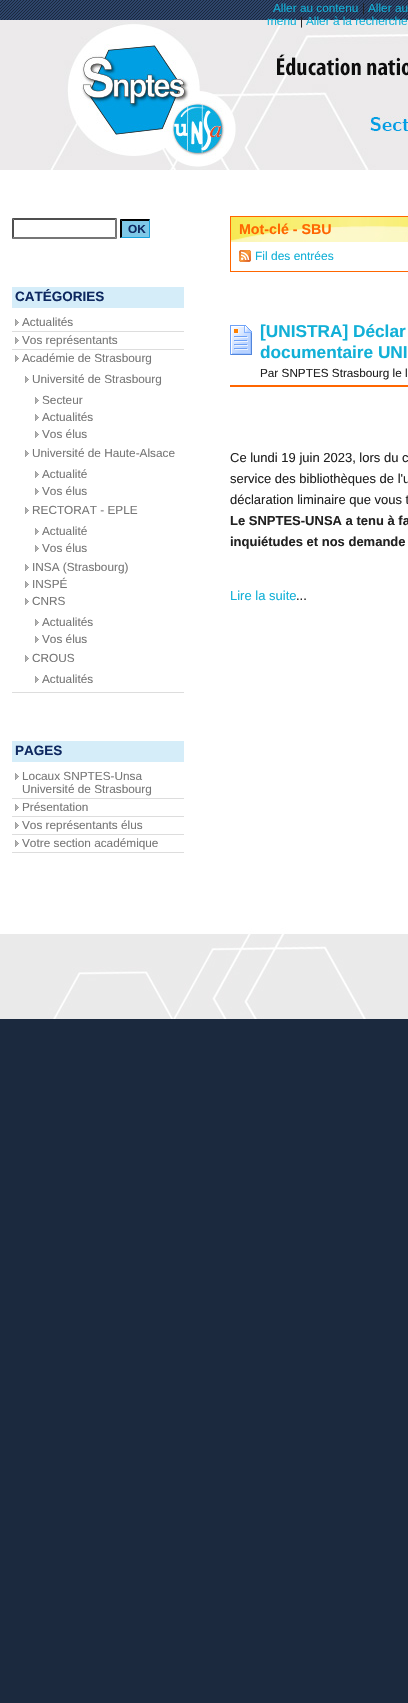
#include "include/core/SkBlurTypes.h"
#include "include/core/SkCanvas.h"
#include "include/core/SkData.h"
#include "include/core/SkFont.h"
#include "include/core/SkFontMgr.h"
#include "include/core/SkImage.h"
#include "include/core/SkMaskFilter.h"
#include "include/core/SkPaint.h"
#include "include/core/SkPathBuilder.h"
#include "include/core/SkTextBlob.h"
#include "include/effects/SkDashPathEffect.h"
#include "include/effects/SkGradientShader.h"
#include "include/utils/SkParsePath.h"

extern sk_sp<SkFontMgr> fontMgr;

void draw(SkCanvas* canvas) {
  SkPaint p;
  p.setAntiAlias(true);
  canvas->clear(SkColorSetRGB(27, 41, 62));
  canvas->drawImageRect(SkImages::DeferredFromEncodedData(SkData::MakeFromFileName("images/1.png")), SkRect::MakeLTRB(0, 0, 408, 20), SkSamplingOptions());
  p.setColor(SK_ColorWHITE);
  canvas->drawRect(SkRect::MakeLTRB(0, 170, 408, 879), p);
  canvas->drawImageRect(SkImages::DeferredFromEncodedData(SkData::MakeFromFileName("images/2.png")), SkRect::MakeLTRB(0, 20, 408, 170), SkSamplingOptions());
  p.setColor(SkColorSetRGB(79, 79, 79));
  canvas->drawPath(SkPathBuilder().moveTo(12, 218).lineTo(117, 218).lineTo(115, 220).lineTo(14, 220).close().detach(), p);
  p.setColor(SkColorSetRGB(118, 118, 118));
  canvas->drawPath(SkPathBuilder().moveTo(117, 218).lineTo(117, 239).lineTo(115, 237).lineTo(115, 220).close().detach(), p);
  canvas->drawPath(SkPathBuilder().moveTo(117, 239).lineTo(12, 239).lineTo(14, 237).lineTo(115, 237).close().detach(), p);
  p.setColor(SkColorSetRGB(79, 79, 79));
  canvas->drawPath(SkPathBuilder().moveTo(12, 239).lineTo(12, 218).lineTo(14, 220).lineTo(14, 237).close().detach(), p);
  p.setColor(SkColorSetRGB(126, 200, 231));
  canvas->drawRect(SkRect::MakeLTRB(120, 219, 150, 238), p);
  p.setColor(SK_ColorBLACK);
  canvas->drawPath(SkPathBuilder().moveTo(120, 219).lineTo(150, 219).lineTo(149, 221).lineTo(122, 221).close().detach(), p);
  p.setColor(SkColorSetRGB(19, 162, 222));
  canvas->drawPath(SkPathBuilder().moveTo(150, 219).lineTo(150, 238).lineTo(149, 237).lineTo(149, 221).close().detach(), p);
  canvas->drawPath(SkPathBuilder().moveTo(150, 238).lineTo(120, 238).lineTo(122, 237).lineTo(149, 237).close().detach(), p);
  p.setColor(SK_ColorBLACK);
  canvas->drawPath(SkPathBuilder().moveTo(120, 238).lineTo(120, 219).lineTo(122, 221).lineTo(122, 237).close().detach(), p);
  p.setColor(SkColorSetRGB(213, 237, 249));
  canvas->drawRect(SkRect::MakeLTRB(12, 287, 184, 308), p);
  canvas->drawImageRect(SkImages::DeferredFromEncodedData(SkData::MakeFromFileName("images/3.png")), SkRect::MakeLTRB(15, 319, 19, 326), SkSamplingOptions());
  p.setColor(SkColorSetRGB(221, 221, 221));
  canvas->drawRect(SkRect::MakeLTRB(12, 331, 184, 332), p);
  canvas->drawImageRect(SkImages::DeferredFromEncodedData(SkData::MakeFromFileName("images/3.png")), SkRect::MakeLTRB(15, 337, 19, 344), SkSamplingOptions());
  canvas->drawRect(SkRect::MakeLTRB(12, 349, 184, 350), p);
  canvas->drawImageRect(SkImages::DeferredFromEncodedData(SkData::MakeFromFileName("images/3.png")), SkRect::MakeLTRB(15, 355, 19, 362), SkSamplingOptions());
  canvas->drawRect(SkRect::MakeLTRB(12, 692, 184, 693), p);
  canvas->drawImageRect(SkImages::DeferredFromEncodedData(SkData::MakeFromFileName("images/3.png")), SkRect::MakeLTRB(25, 376, 29, 383), SkSamplingOptions());
  canvas->drawImageRect(SkImages::DeferredFromEncodedData(SkData::MakeFromFileName("images/3.png")), SkRect::MakeLTRB(35, 397, 39, 404), SkSamplingOptions());
  canvas->drawImageRect(SkImages::DeferredFromEncodedData(SkData::MakeFromFileName("images/3.png")), SkRect::MakeLTRB(35, 414, 39, 421), SkSamplingOptions());
  canvas->drawImageRect(SkImages::DeferredFromEncodedData(SkData::MakeFromFileName("images/3.png")), SkRect::MakeLTRB(35, 431, 39, 438), SkSamplingOptions());
  canvas->drawImageRect(SkImages::DeferredFromEncodedData(SkData::MakeFromFileName("images/3.png")), SkRect::MakeLTRB(25, 450, 29, 457), SkSamplingOptions());
  canvas->drawImageRect(SkImages::DeferredFromEncodedData(SkData::MakeFromFileName("images/3.png")), SkRect::MakeLTRB(35, 471, 39, 478), SkSamplingOptions());
  canvas->drawImageRect(SkImages::DeferredFromEncodedData(SkData::MakeFromFileName("images/3.png")), SkRect::MakeLTRB(35, 488, 39, 495), SkSamplingOptions());
  canvas->drawImageRect(SkImages::DeferredFromEncodedData(SkData::MakeFromFileName("images/3.png")), SkRect::MakeLTRB(25, 507, 29, 514), SkSamplingOptions());
  canvas->drawImageRect(SkImages::DeferredFromEncodedData(SkData::MakeFromFileName("images/3.png")), SkRect::MakeLTRB(35, 528, 39, 535), SkSamplingOptions());
  canvas->drawImageRect(SkImages::DeferredFromEncodedData(SkData::MakeFromFileName("images/3.png")), SkRect::MakeLTRB(35, 545, 39, 552), SkSamplingOptions());
  canvas->drawImageRect(SkImages::DeferredFromEncodedData(SkData::MakeFromFileName("images/3.png")), SkRect::MakeLTRB(25, 564, 29, 571), SkSamplingOptions());
  canvas->drawImageRect(SkImages::DeferredFromEncodedData(SkData::MakeFromFileName("images/3.png")), SkRect::MakeLTRB(25, 581, 29, 588), SkSamplingOptions());
  canvas->drawImageRect(SkImages::DeferredFromEncodedData(SkData::MakeFromFileName("images/3.png")), SkRect::MakeLTRB(25, 598, 29, 605), SkSamplingOptions());
  canvas->drawImageRect(SkImages::DeferredFromEncodedData(SkData::MakeFromFileName("images/3.png")), SkRect::MakeLTRB(35, 619, 39, 626), SkSamplingOptions());
  canvas->drawImageRect(SkImages::DeferredFromEncodedData(SkData::MakeFromFileName("images/3.png")), SkRect::MakeLTRB(35, 636, 39, 643), SkSamplingOptions());
  canvas->drawImageRect(SkImages::DeferredFromEncodedData(SkData::MakeFromFileName("images/3.png")), SkRect::MakeLTRB(25, 655, 29, 662), SkSamplingOptions());
  canvas->drawImageRect(SkImages::DeferredFromEncodedData(SkData::MakeFromFileName("images/3.png")), SkRect::MakeLTRB(35, 676, 39, 683), SkSamplingOptions());
  p.setColor(SkColorSetRGB(213, 237, 249));
  canvas->drawRect(SkRect::MakeLTRB(12, 741, 184, 762), p);
  canvas->drawImageRect(SkImages::DeferredFromEncodedData(SkData::MakeFromFileName("images/3.png")), SkRect::MakeLTRB(15, 773, 19, 780), SkSamplingOptions());
  p.setColor(SkColorSetRGB(221, 221, 221));
  canvas->drawRect(SkRect::MakeLTRB(12, 798, 184, 799), p);
  canvas->drawImageRect(SkImages::DeferredFromEncodedData(SkData::MakeFromFileName("images/3.png")), SkRect::MakeLTRB(15, 804, 19, 811), SkSamplingOptions());
  canvas->drawRect(SkRect::MakeLTRB(12, 816, 184, 817), p);
  canvas->drawImageRect(SkImages::DeferredFromEncodedData(SkData::MakeFromFileName("images/3.png")), SkRect::MakeLTRB(15, 822, 19, 829), SkSamplingOptions());
  canvas->drawRect(SkRect::MakeLTRB(12, 834, 184, 835), p);
  canvas->drawImageRect(SkImages::DeferredFromEncodedData(SkData::MakeFromFileName("images/3.png")), SkRect::MakeLTRB(15, 840, 19, 847), SkSamplingOptions());
  canvas->drawRect(SkRect::MakeLTRB(12, 852, 184, 853), p);
  p.setStyle(SkPaint::kStroke_Style);
  p.setStrokeWidth(1);
  p.setColor(SkColorSetRGB(255, 102, 0));
  canvas->drawRect(SkRect::MakeLTRB(230.5f, 216.5f, 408.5f, 271.5f), p);
  canvas->drawImageRect(SkImages::DeferredFromEncodedData(SkData::MakeFromFileName("images/4.png")), SkRect::MakeLTRB(231, 217, 408, 242), SkSamplingOptions());
  canvas->drawImageRect(SkImages::DeferredFromEncodedData(SkData::MakeFromFileName("images/5.png")), SkRect::MakeLTRB(239, 250, 251, 262), SkSamplingOptions());
  canvas->drawImageRect(SkImages::DeferredFromEncodedData(SkData::MakeFromFileName("images/6.png")), SkRect::MakeLTRB(230, 325, 252, 355), SkSamplingOptions());
  p.setStyle(SkPaint::kFill_Style);
  canvas->drawRect(SkRect::MakeLTRB(230, 385, 408, 387), p);
  canvas->drawImageRect(SkImages::DeferredFromEncodedData(SkData::MakeFromFileName("images/7.png")), SkRect::MakeLTRB(0, 879, 408, 1019), SkSamplingOptions());
  SkFont font1(fontMgr->matchFamilyStyle("Liberation Sans", SkFontStyle::Normal()), 11.8f);
  font1.setSubpixel(true);
  p.setColor(SkColorSetRGB(18, 176, 215));
  canvas->drawString("Aller au contenu", 273, 12, font1, p);
  p.setColor(SkColorSetRGB(34, 34, 34));
  canvas->drawString("|", 362, 12, font1, p);
  p.setColor(SkColorSetRGB(18, 176, 215));
  canvas->drawString("Aller au", 368, 12, font1, p);
  canvas->drawString("menu", 267, 25, font1, p);
  p.setColor(SkColorSetRGB(34, 34, 34));
  canvas->drawString("|", 300, 25, font1, p);
  p.setColor(SkColorSetRGB(18, 176, 215));
  canvas->drawString("Aller à la recherche", 306, 25, font1, p);
  SkFont font2(fontMgr->matchFamilyStyle("Liberation Sans", SkFontStyle::Bold()), 11.8f);
  font2.setSubpixel(true);
  p.setColor(SkColorSetRGB(14, 40, 96));
  canvas->drawString("OK", 128, 233, font2, p);
  SkFont font3(fontMgr->matchFamilyStyle("Liberation Sans", SkFontStyle::Bold()), 13.5f);
  font3.setSubpixel(true);
  canvas->drawString("CATÉGORIES", 15, 301, font3, p);
  p.setColor(SkColorSetRGB(119, 119, 119));
  canvas->drawString("Actualités", 22, 326, font1, p);
  canvas->drawString("Vos représentants", 22, 344, font1, p);
  canvas->drawString("Académie de Strasbourg", 22, 362, font1, p);
  canvas->drawString("Université de Strasbourg", 32, 383, font1, p);
  canvas->drawString("Secteur", 42, 404, font1, p);
  canvas->drawString("Actualités", 42, 421, font1, p);
  canvas->drawString("Vos élus", 42, 438, font1, p);
  canvas->drawString("Université de Haute-Alsace", 32, 457, font1, p);
  canvas->drawString("Actualité", 42, 478, font1, p);
  canvas->drawString("Vos élus", 42, 495, font1, p);
  canvas->drawString("RECTORAT - EPLE", 32, 514, font1, p);
  canvas->drawString("Actualité", 42, 535, font1, p);
  canvas->drawString("Vos élus", 42, 552, font1, p);
  canvas->drawString("INSA (Strasbourg)", 32, 571, font1, p);
  canvas->drawString("INSPÉ", 32, 588, font1, p);
  canvas->drawString("CNRS", 32, 605, font1, p);
  canvas->drawString("Actualités", 42, 626, font1, p);
  canvas->drawString("Vos élus", 42, 643, font1, p);
  canvas->drawString("CROUS", 32, 662, font1, p);
  canvas->drawString("Actualités", 42, 683, font1, p);
  p.setColor(SkColorSetRGB(14, 40, 96));
  canvas->drawString("PAGES", 15, 755, font3, p);
  p.setColor(SkColorSetRGB(119, 119, 119));
  canvas->drawString("Locaux SNPTES-Unsa", 22, 780, font1, p);
  canvas->drawString("Université de Strasbourg", 22, 793, font1, p);
  canvas->drawString("Présentation", 22, 811, font1, p);
  canvas->drawString("Vos représentants élus", 22, 829, font1, p);
  canvas->drawString("Votre section académique", 22, 847, font1, p);
  SkFont font4(fontMgr->matchFamilyStyle("Liberation Sans", SkFontStyle::Bold()), 14.25f);
  font4.setSubpixel(true);
  p.setColor(SkColorSetRGB(255, 102, 0));
  canvas->drawString("Mot-clé - SBU", 239, 234, font4, p);
  SkFont font5(fontMgr->matchFamilyStyle("Liberation Sans", SkFontStyle::Normal()), 12);
  font5.setSubpixel(true);
  p.setColor(SkColorSetRGB(18, 176, 215));
  canvas->drawString("Fil des entrées", 255, 260, font5, p);
  SkFont font6(fontMgr->matchFamilyStyle("Liberation Sans", SkFontStyle::Bold()), 17.25f);
  font6.setSubpixel(true);
  canvas->drawString("[UNISTRA] Déclar", 260, 337, font6, p);
  canvas->drawString("documentaire UNI", 260, 358, font6, p);
  SkFont font7(fontMgr->matchFamilyStyle("Liberation Sans", SkFontStyle::Normal()), 11.75f);
  font7.setSubpixel(true);
  p.setColor(SkColorSetRGB(34, 34, 34));
  canvas->drawString("Par SNPTES Strasbourg le l", 260, 377, font7, p);
  SkFont font8(fontMgr->matchFamilyStyle("Liberation Sans", SkFontStyle::Normal()), 13);
  font8.setSubpixel(true);
  canvas->drawString("Ce lundi 19 juin 2023, lors du c", 230, 462, font8, p);
  canvas->drawString("service des bibliothèques de l'u", 230, 483, font8, p);
  canvas->drawString("déclaration liminaire que vous t", 230, 504, font8, p);
  SkFont font9(fontMgr->matchFamilyStyle("Liberation Sans", SkFontStyle::Bold()), 13);
  font9.setSubpixel(true);
  canvas->drawString("Le SNPTES-UNSA a tenu à fa", 230, 525, font9, p);
  canvas->drawString("inquiétudes et nos demande", 230, 546, font9, p);
  p.setColor(SkColorSetRGB(18, 176, 215));
  canvas->drawString("Lire la suite", 230, 600, font8, p);
  p.setColor(SkColorSetRGB(34, 34, 34));
  canvas->drawString("...", 296, 600, font8, p);
}
